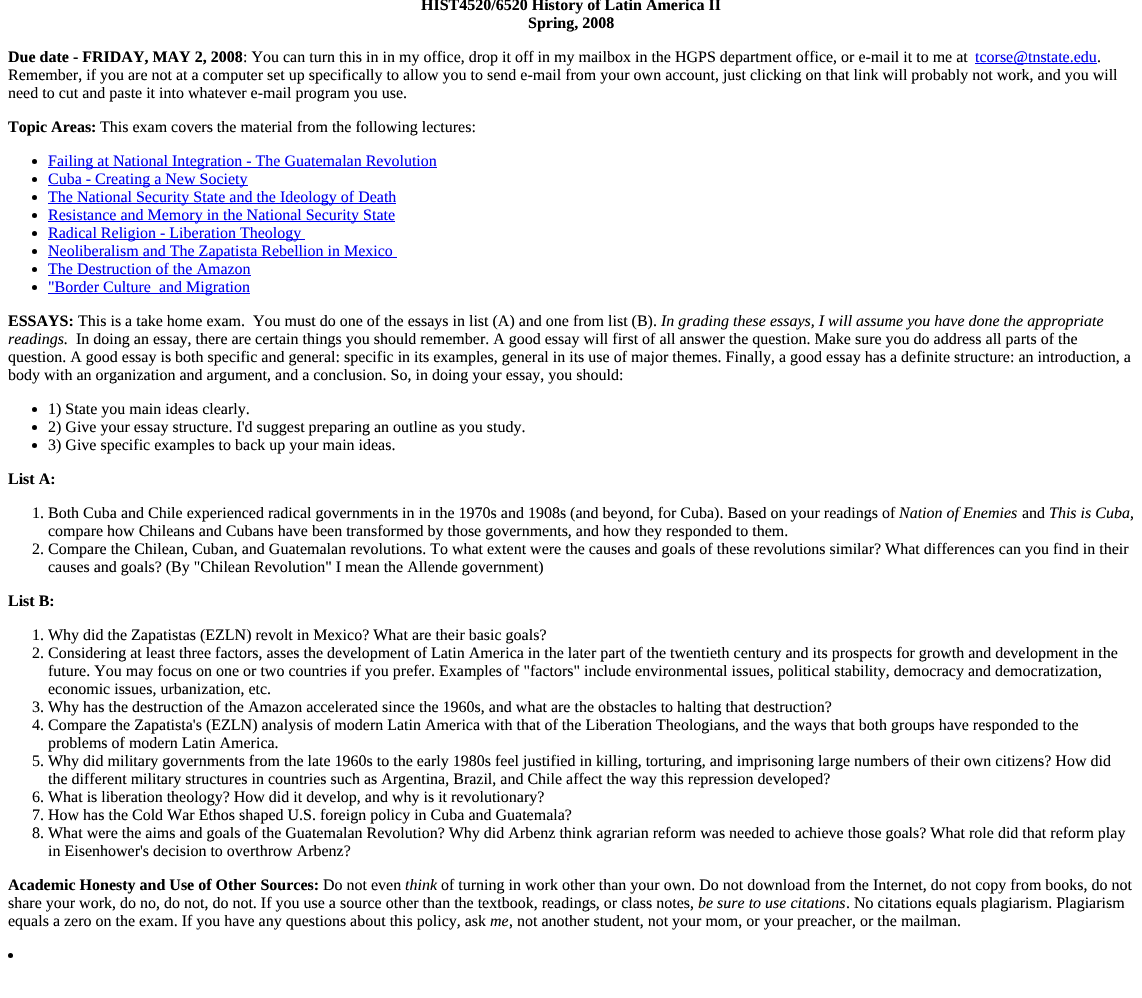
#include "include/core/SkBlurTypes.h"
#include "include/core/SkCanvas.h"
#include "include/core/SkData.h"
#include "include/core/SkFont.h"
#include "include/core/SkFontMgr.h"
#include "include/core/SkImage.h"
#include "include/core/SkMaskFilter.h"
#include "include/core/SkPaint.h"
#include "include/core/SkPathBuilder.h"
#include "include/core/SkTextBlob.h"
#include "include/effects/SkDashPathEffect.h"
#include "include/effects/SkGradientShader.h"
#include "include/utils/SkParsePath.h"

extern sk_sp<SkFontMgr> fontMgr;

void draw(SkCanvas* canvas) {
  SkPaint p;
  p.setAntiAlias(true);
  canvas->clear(SK_ColorWHITE);
  p.setColor(SkColorSetRGB(0, 0, 238));
  canvas->drawRect(SkRect::MakeLTRB(975, 63, 1097, 64), p);
  p.setColor(SK_ColorBLACK);
  canvas->drawCircle(34.5f, 161.5f, 2.5f, p);
  p.setColor(SkColorSetRGB(0, 0, 238));
  canvas->drawRect(SkRect::MakeLTRB(48, 167, 437, 168), p);
  p.setColor(SK_ColorBLACK);
  canvas->drawCircle(34.5f, 179.5f, 2.5f, p);
  p.setColor(SkColorSetRGB(0, 0, 238));
  canvas->drawRect(SkRect::MakeLTRB(48, 185, 248, 186), p);
  p.setColor(SK_ColorBLACK);
  canvas->drawCircle(34.5f, 197.5f, 2.5f, p);
  p.setColor(SkColorSetRGB(0, 0, 238));
  canvas->drawRect(SkRect::MakeLTRB(48, 203, 396, 204), p);
  p.setColor(SK_ColorBLACK);
  canvas->drawCircle(34.5f, 215.5f, 2.5f, p);
  p.setColor(SkColorSetRGB(0, 0, 238));
  canvas->drawRect(SkRect::MakeLTRB(48, 221, 395, 222), p);
  p.setColor(SK_ColorBLACK);
  canvas->drawCircle(34.5f, 233.5f, 2.5f, p);
  p.setColor(SkColorSetRGB(0, 0, 238));
  canvas->drawRect(SkRect::MakeLTRB(48, 239, 305, 240), p);
  p.setColor(SK_ColorBLACK);
  canvas->drawCircle(34.5f, 251.5f, 2.5f, p);
  p.setColor(SkColorSetRGB(0, 0, 238));
  canvas->drawRect(SkRect::MakeLTRB(48, 257, 397, 258), p);
  p.setColor(SK_ColorBLACK);
  canvas->drawCircle(34.5f, 269.5f, 2.5f, p);
  p.setColor(SkColorSetRGB(0, 0, 238));
  canvas->drawRect(SkRect::MakeLTRB(48, 275, 251, 276), p);
  p.setColor(SK_ColorBLACK);
  canvas->drawCircle(34.5f, 287.5f, 2.5f, p);
  p.setColor(SkColorSetRGB(0, 0, 238));
  canvas->drawRect(SkRect::MakeLTRB(48, 293, 250, 294), p);
  p.setColor(SK_ColorBLACK);
  canvas->drawCircle(34.5f, 409.5f, 2.5f, p);
  canvas->drawCircle(34.5f, 427.5f, 2.5f, p);
  canvas->drawCircle(34.5f, 445.5f, 2.5f, p);
  canvas->drawCircle(10.5f, 955.5f, 2.5f, p);
  SkFont font1(fontMgr->matchFamilyStyle("Liberation Serif", SkFontStyle::Bold()), 16);
  font1.setSubpixel(true);
  canvas->drawString("HIST4520/6520 History of Latin America II", 421, 10, font1, p);
  canvas->drawString("Spring, 2008", 528, 28, font1, p);
  canvas->drawString("Due date - FRIDAY, MAY 2, 2008", 8, 62, font1, p);
  SkFont font2(fontMgr->matchFamilyStyle("Liberation Serif", SkFontStyle::Normal()), 16);
  font2.setSubpixel(true);
  canvas->drawString(": You can turn this in in my office, drop it off in my mailbox in the HGPS department office, or e-mail it to me at", 243, 62, font2, p);
  p.setColor(SkColorSetRGB(0, 0, 238));
  canvas->drawString("tcorse@tnstate.edu", 975, 62, font2, p);
  p.setColor(SK_ColorBLACK);
  canvas->drawString(".", 1097, 62, font2, p);
  canvas->drawString("Remember, if you are not at a computer set up specifically to allow you to send e-mail from your own account, just clicking on that link will probably not work, and you will", 8, 80, font2, p);
  canvas->drawString("need to cut and paste it into whatever e-mail program you use.", 8, 98, font2, p);
  canvas->drawString("Topic Areas:", 8, 132, font1, p);
  canvas->drawString("This exam covers the material from the following lectures:", 100, 132, font2, p);
  p.setColor(SkColorSetRGB(0, 0, 238));
  canvas->drawString("Failing at National Integration - The Guatemalan Revolution", 48, 166, font2, p);
  canvas->drawString("Cuba - Creating a New Society", 48, 184, font2, p);
  canvas->drawString("The National Security State and the Ideology of Death", 48, 202, font2, p);
  canvas->drawString("Resistance and Memory in the National Security State", 48, 220, font2, p);
  canvas->drawString("Radical Religion - Liberation Theology", 48, 238, font2, p);
  canvas->drawString("Neoliberalism and The Zapatista Rebellion in Mexico", 48, 256, font2, p);
  canvas->drawString("The Destruction of the Amazon", 48, 274, font2, p);
  canvas->drawString("\"Border Culture  and Migration", 48, 292, font2, p);
  p.setColor(SK_ColorBLACK);
  canvas->drawString("ESSAYS:", 8, 326, font1, p);
  canvas->drawString("This is a take home exam.", 78, 326, font2, p);
  canvas->drawString("You must do one of the essays in list (A) and one from list (B).", 253, 326, font2, p);
  SkFont font3(fontMgr->matchFamilyStyle("Liberation Serif", SkFontStyle::Italic()), 16);
  font3.setSubpixel(true);
  canvas->drawString("In grading these essays, I will assume you have done the appropriate", 661, 326, font3, p);
  canvas->drawString("readings.", 8, 344, font3, p);
  canvas->drawString("In doing an essay, there are certain things you should remember. A good essay will first of all answer the question. Make sure you do address all parts of the", 76, 344, font2, p);
  canvas->drawString("question. A good essay is both specific and general: specific in its examples, general in its use of major themes. Finally, a good essay has a definite structure: an introduction, a", 8, 362, font2, p);
  canvas->drawString("body with an organization and argument, and a conclusion. So, in doing your essay, you should:", 8, 380, font2, p);
  canvas->drawString("1) State you main ideas clearly.", 48, 414, font2, p);
  canvas->drawString("2) Give your essay structure. I'd suggest preparing an outline as you study.", 48, 432, font2, p);
  canvas->drawString("3) Give specific examples to back up your main ideas.", 48, 450, font2, p);
  canvas->drawString("List A:", 8, 484, font1, p);
  canvas->drawString("1. Both Cuba and Chile experienced radical governments in in the 1970s and 1908s (and beyond, for Cuba). Based on your readings of", 32, 518, font2, p);
  canvas->drawString("Nation of Enemies", 899, 518, font3, p);
  canvas->drawString("and", 1022, 518, font2, p);
  canvas->drawString("This is Cuba", 1049, 518, font3, p);
  canvas->drawString(",", 1130, 518, font2, p);
  canvas->drawString("compare how Chileans and Cubans have been transformed by those governments, and how they responded to them.", 48, 536, font2, p);
  canvas->drawString("2. Compare the Chilean, Cuban, and Guatemalan revolutions. To what extent were the causes and goals of these revolutions similar? What differences can you find in their", 32, 554, font2, p);
  canvas->drawString("causes and goals? (By \"Chilean Revolution\" I mean the Allende government)", 48, 572, font2, p);
  canvas->drawString("List B:", 8, 606, font1, p);
  canvas->drawString("1. Why did the Zapatistas (EZLN) revolt in Mexico? What are their basic goals?", 32, 640, font2, p);
  canvas->drawString("2. Considering at least three factors, asses the development of Latin America in the later part of the twentieth century and its prospects for growth and development in the", 32, 658, font2, p);
  canvas->drawString("future. You may focus on one or two countries if you prefer. Examples of \"factors\" include environmental issues, political stability, democracy and democratization,", 48, 676, font2, p);
  canvas->drawString("economic issues, urbanization, etc.", 48, 694, font2, p);
  canvas->drawString("3. Why has the destruction of the Amazon accelerated since the 1960s, and what are the obstacles to halting that destruction?", 32, 712, font2, p);
  canvas->drawString("4. Compare the Zapatista's (EZLN) analysis of modern Latin America with that of the Liberation Theologians, and the ways that both groups have responded to the", 32, 730, font2, p);
  canvas->drawString("problems of modern Latin America.", 48, 748, font2, p);
  canvas->drawString("5. Why did military governments from the late 1960s to the early 1980s feel justified in killing, torturing, and imprisoning large numbers of their own citizens? How did", 32, 766, font2, p);
  canvas->drawString("the different military structures in countries such as Argentina, Brazil, and Chile affect the way this repression developed?", 48, 784, font2, p);
  canvas->drawString("6. What is liberation theology? How did it develop, and why is it revolutionary?", 32, 802, font2, p);
  canvas->drawString("7. How has the Cold War Ethos shaped U.S. foreign policy in Cuba and Guatemala?", 32, 820, font2, p);
  canvas->drawString("8. What were the aims and goals of the Guatemalan Revolution? Why did Arbenz think agrarian reform was needed to achieve those goals? What role did that reform play", 32, 838, font2, p);
  canvas->drawString("in Eisenhower's decision to overthrow Arbenz?", 48, 856, font2, p);
  canvas->drawString("Academic Honesty and Use of Other Sources:", 8, 890, font1, p);
  canvas->drawString("Do not even", 323, 890, font2, p);
  canvas->drawString("think", 405, 890, font3, p);
  canvas->drawString("of turning in work other than your own. Do not download from the Internet, do not copy from books, do not", 441, 890, font2, p);
  canvas->drawString("share your work, do no, do not, do not. If you use a source other than the textbook, readings, or class notes,", 8, 908, font2, p);
  canvas->drawString("be sure to use citations", 698, 908, font3, p);
  canvas->drawString(". No citations equals plagiarism. Plagiarism", 846, 908, font2, p);
  canvas->drawString("equals a zero on the exam. If you have any questions about this policy, ask", 8, 926, font2, p);
  canvas->drawString("me", 490, 926, font3, p);
  canvas->drawString(", not another student, not your mom, or your preacher, or the mailman.", 509, 926, font2, p);
}
